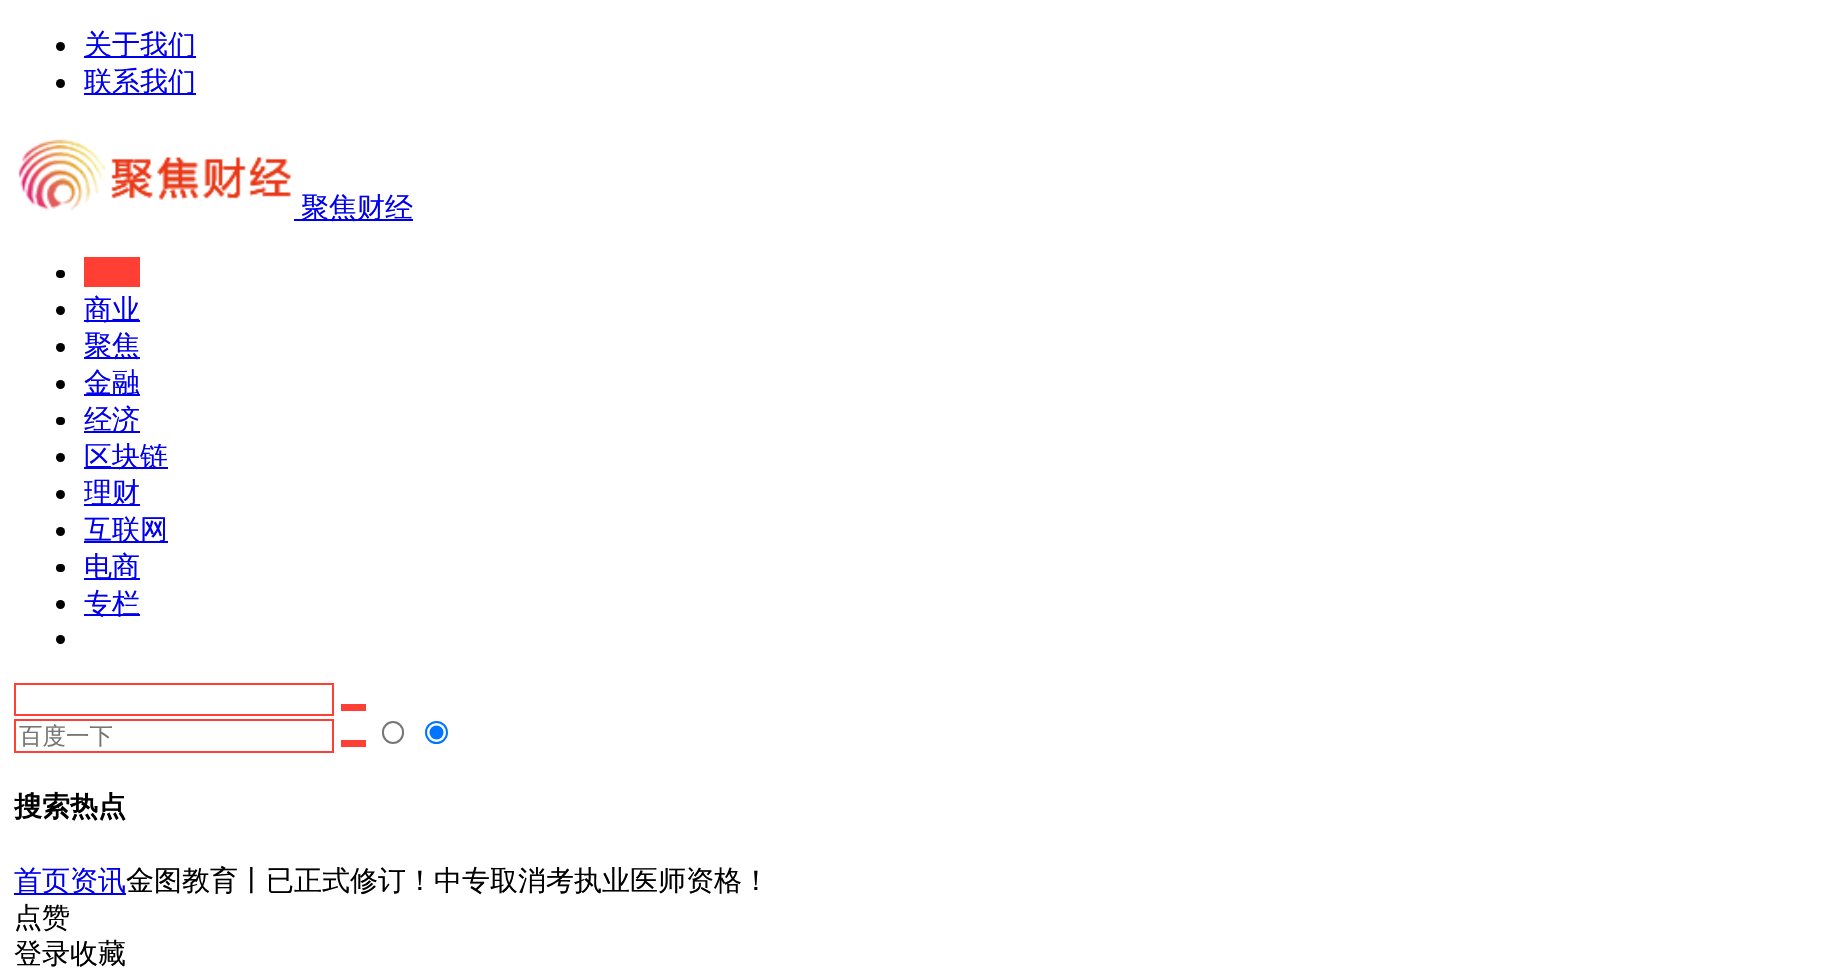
#include "include/core/SkBlurTypes.h"
#include "include/core/SkCanvas.h"
#include "include/core/SkData.h"
#include "include/core/SkFont.h"
#include "include/core/SkFontMgr.h"
#include "include/core/SkImage.h"
#include "include/core/SkMaskFilter.h"
#include "include/core/SkPaint.h"
#include "include/core/SkPathBuilder.h"
#include "include/core/SkTextBlob.h"
#include "include/effects/SkDashPathEffect.h"
#include "include/effects/SkGradientShader.h"
#include "include/utils/SkParsePath.h"

extern sk_sp<SkFontMgr> fontMgr;

void draw(SkCanvas* canvas) {
  SkPaint p;
  p.setAntiAlias(true);
  canvas->clear(SK_ColorWHITE);
  p.setColor(SK_ColorBLACK);
  canvas->drawCircle(60.5f, 46.5f, 4.5f, p);
  p.setColor(SkColorSetRGB(0, 0, 238));
  canvas->drawRect(SkRect::MakeLTRB(84, 56, 196, 58), p);
  p.setColor(SK_ColorBLACK);
  canvas->drawCircle(60.5f, 83.5f, 4.5f, p);
  p.setColor(SkColorSetRGB(0, 0, 238));
  canvas->drawRect(SkRect::MakeLTRB(84, 93, 196, 95), p);
  canvas->drawImageRect(SkImages::DeferredFromEncodedData(SkData::MakeFromFileName("images/1.png")), SkRect::MakeLTRB(18, 139, 291, 211), SkSamplingOptions());
  canvas->drawRect(SkRect::MakeLTRB(294, 219, 413, 221), p);
  p.setColor(SK_ColorBLACK);
  canvas->drawRoundRect(SkRect::MakeLTRB(56, 270, 65, 278), 4, 4, p);
  p.setColor(SkColorSetRGB(255, 62, 52));
  canvas->drawRect(SkRect::MakeLTRB(84, 257, 140, 287), p);
  p.setColor(SK_ColorBLACK);
  canvas->drawCircle(60.5f, 310.5f, 4.5f, p);
  p.setColor(SkColorSetRGB(0, 0, 238));
  canvas->drawRect(SkRect::MakeLTRB(84, 320, 140, 322), p);
  p.setColor(SK_ColorBLACK);
  canvas->drawCircle(60.5f, 347.5f, 4.5f, p);
  p.setColor(SkColorSetRGB(0, 0, 238));
  canvas->drawRect(SkRect::MakeLTRB(84, 357, 140, 359), p);
  p.setColor(SK_ColorBLACK);
  canvas->drawCircle(60.5f, 384.5f, 4.5f, p);
  p.setColor(SkColorSetRGB(0, 0, 238));
  canvas->drawRect(SkRect::MakeLTRB(84, 394, 140, 396), p);
  p.setColor(SK_ColorBLACK);
  canvas->drawRoundRect(SkRect::MakeLTRB(56, 417, 65, 425), 4, 4, p);
  p.setColor(SkColorSetRGB(0, 0, 238));
  canvas->drawRect(SkRect::MakeLTRB(84, 431, 140, 433), p);
  p.setColor(SK_ColorBLACK);
  canvas->drawCircle(60.5f, 457.5f, 4.5f, p);
  p.setColor(SkColorSetRGB(0, 0, 238));
  canvas->drawRect(SkRect::MakeLTRB(84, 467, 168, 469), p);
  p.setColor(SK_ColorBLACK);
  canvas->drawCircle(60.5f, 494.5f, 4.5f, p);
  p.setColor(SkColorSetRGB(0, 0, 238));
  canvas->drawRect(SkRect::MakeLTRB(84, 504, 140, 506), p);
  p.setColor(SK_ColorBLACK);
  canvas->drawCircle(60.5f, 531.5f, 4.5f, p);
  p.setColor(SkColorSetRGB(0, 0, 238));
  canvas->drawRect(SkRect::MakeLTRB(84, 541, 168, 543), p);
  p.setColor(SK_ColorBLACK);
  canvas->drawRoundRect(SkRect::MakeLTRB(56, 564, 65, 572), 4, 4, p);
  p.setColor(SkColorSetRGB(0, 0, 238));
  canvas->drawRect(SkRect::MakeLTRB(84, 578, 140, 580), p);
  p.setColor(SK_ColorBLACK);
  canvas->drawCircle(60.5f, 604.5f, 4.5f, p);
  p.setColor(SkColorSetRGB(0, 0, 238));
  canvas->drawRect(SkRect::MakeLTRB(84, 614, 140, 616), p);
  p.setColor(SK_ColorBLACK);
  canvas->drawCircle(60.5f, 639.5f, 4.5f, p);
  p.setStyle(SkPaint::kStroke_Style);
  p.setStrokeWidth(2);
  p.setColor(SkColorSetRGB(255, 62, 52));
  canvas->drawRect(SkRect::MakeLTRB(15, 684, 333, 715), p);
  p.setStyle(SkPaint::kFill_Style);
  canvas->drawRect(SkRect::MakeLTRB(341, 704, 366, 711), p);
  p.setStyle(SkPaint::kStroke_Style);
  canvas->drawRect(SkRect::MakeLTRB(15, 720, 333, 752), p);
  p.setStyle(SkPaint::kFill_Style);
  canvas->drawRect(SkRect::MakeLTRB(341, 740, 366, 747), p);
  p.setStyle(SkPaint::kStroke_Style);
  p.setColor(SkColorSetRGB(118, 118, 118));
  canvas->drawRoundRect(SkRect::MakeLTRB(383, 722, 403, 743), 10, 10, p);
  p.setColor(SkColorSetRGB(0, 117, 255));
  canvas->drawCircle(436.5f, 732.5f, 10.5f, p);
  p.setStyle(SkPaint::kFill_Style);
  canvas->drawCircle(436.5f, 732.5f, 7, p);
  p.setColor(SkColorSetRGB(0, 0, 238));
  canvas->drawRect(SkRect::MakeLTRB(14, 893, 126, 895), p);
  SkFont font1(fontMgr->matchFamilyStyle("WenQuanYi Zen Hei", SkFontStyle(500, SkFontStyle::kNormal_Width, SkFontStyle::kUpright_Slant)), 28);
  font1.setSubpixel(true);
  canvas->drawString("关于我们", 84, 54, font1, p);
  canvas->drawString("联系我们", 84, 91, font1, p);
  canvas->drawString("聚焦财经", 301, 217, font1, p);
  canvas->drawString("商业", 84, 319, font1, p);
  canvas->drawString("聚焦", 84, 355, font1, p);
  canvas->drawString("金融", 84, 392, font1, p);
  canvas->drawString("经济", 84, 429, font1, p);
  canvas->drawString("区块链", 84, 466, font1, p);
  canvas->drawString("理财", 84, 502, font1, p);
  canvas->drawString("互联网", 84, 539, font1, p);
  canvas->drawString("电商", 84, 576, font1, p);
  canvas->drawString("专栏", 84, 613, font1, p);
  SkFont font2(fontMgr->matchFamilyStyle("WenQuanYi Zen Hei", SkFontStyle(500, SkFontStyle::kNormal_Width, SkFontStyle::kUpright_Slant)), 23.5f);
  font2.setSubpixel(true);
  p.setColor(SkColorSetRGB(117, 117, 117));
  canvas->drawString("百度一下", 19, 744, font2, p);
  SkFont font3(fontMgr->matchFamilyStyle("WenQuanYi Zen Hei", SkFontStyle::Bold()), 28);
  font3.setSubpixel(true);
  p.setColor(SK_ColorBLACK);
  canvas->drawString("搜索热点", 14, 816, font3, p);
  p.setColor(SkColorSetRGB(0, 0, 238));
  canvas->drawString("首页资讯", 14, 890, font1, p);
  p.setColor(SK_ColorBLACK);
  canvas->drawString("金图教育丨已正式修订！中专取消考执业医师资格！", 126, 890, font1, p);
  canvas->drawString("点赞", 14, 927, font1, p);
  canvas->drawString("登录收藏", 14, 963, font1, p);
}
